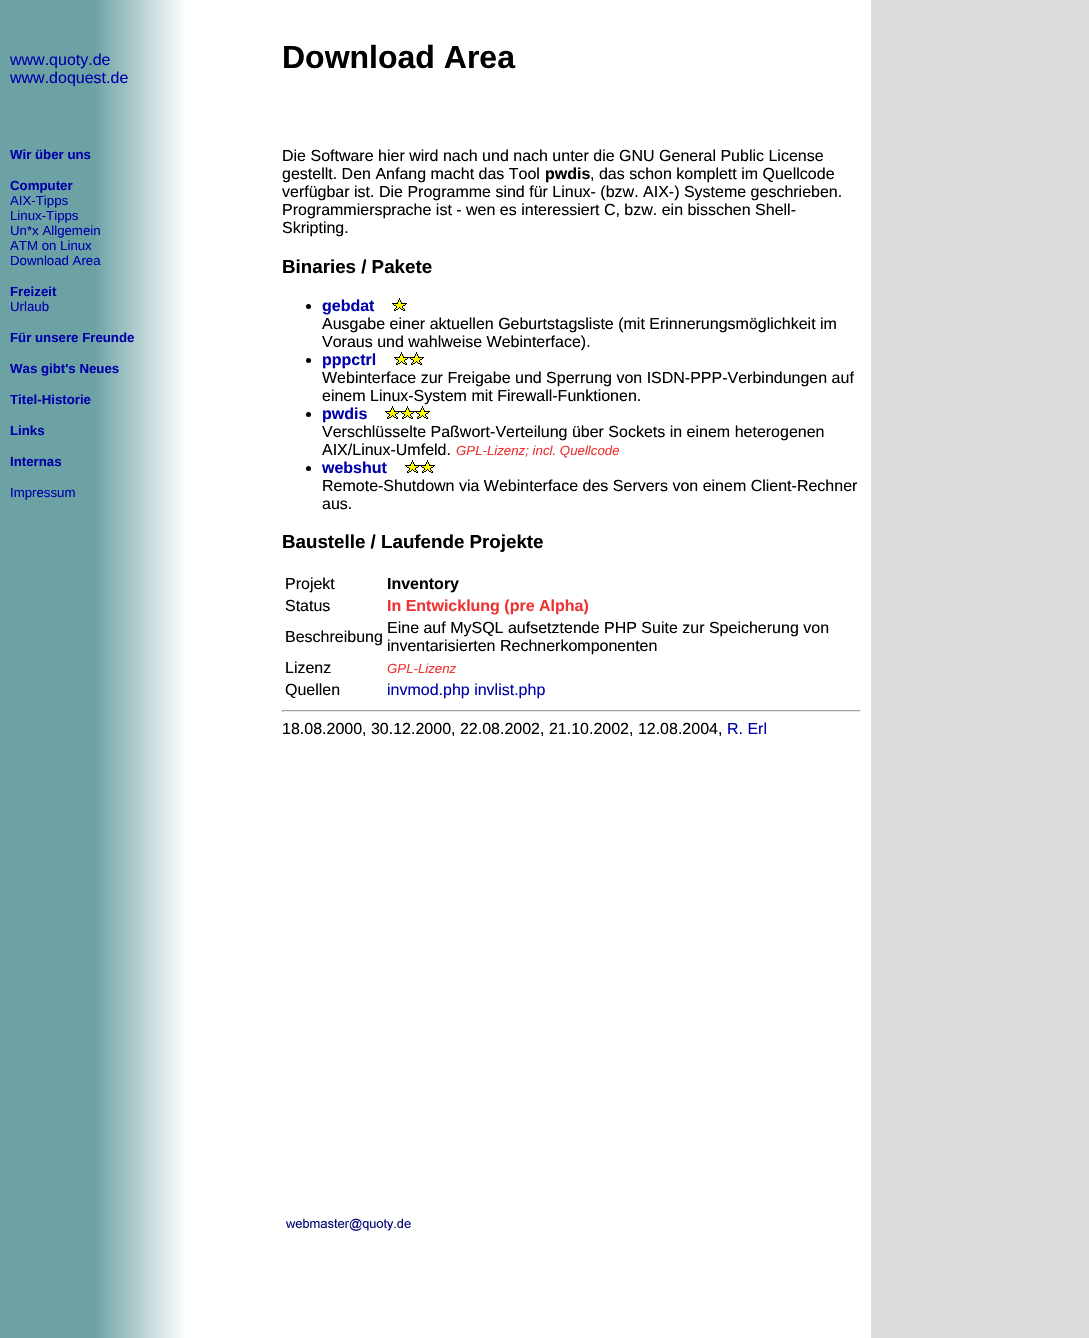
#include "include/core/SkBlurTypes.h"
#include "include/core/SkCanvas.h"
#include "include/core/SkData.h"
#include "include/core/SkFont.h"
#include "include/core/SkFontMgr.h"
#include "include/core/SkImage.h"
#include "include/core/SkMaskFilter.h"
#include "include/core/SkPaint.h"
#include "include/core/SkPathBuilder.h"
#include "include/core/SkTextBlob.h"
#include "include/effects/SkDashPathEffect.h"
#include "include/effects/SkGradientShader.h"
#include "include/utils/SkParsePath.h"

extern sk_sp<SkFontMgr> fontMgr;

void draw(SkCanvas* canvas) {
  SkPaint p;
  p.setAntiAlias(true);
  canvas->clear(SK_ColorWHITE);
  canvas->drawImageRect(SkImages::DeferredFromEncodedData(SkData::MakeFromFileName("images/1.png")), SkRect::MakeLTRB(0, 0, 184, 137), SkSamplingOptions());
  p.setColor(SkColorSetRGB(221, 221, 221));
  canvas->drawRect(SkRect::MakeLTRB(871, 0, 1089, 1338), p);
  canvas->drawImageRect(SkImages::DeferredFromEncodedData(SkData::MakeFromFileName("images/2.png")), SkRect::MakeLTRB(0, 137, 184, 1205), SkSamplingOptions());
  p.setColor(SK_ColorBLACK);
  canvas->drawCircle(308.5f, 306.5f, 2.5f, p);
  canvas->drawImageRect(SkImages::DeferredFromEncodedData(SkData::MakeFromFileName("images/3.png")), SkRect::MakeLTRB(392, 298, 407, 311), SkSamplingOptions());
  canvas->drawCircle(308.5f, 360.5f, 2.5f, p);
  canvas->drawImageRect(SkImages::DeferredFromEncodedData(SkData::MakeFromFileName("images/3.png")), SkRect::MakeLTRB(394, 352, 409, 365), SkSamplingOptions());
  canvas->drawImageRect(SkImages::DeferredFromEncodedData(SkData::MakeFromFileName("images/3.png")), SkRect::MakeLTRB(409, 352, 424, 365), SkSamplingOptions());
  canvas->drawCircle(308.5f, 414.5f, 2.5f, p);
  canvas->drawImageRect(SkImages::DeferredFromEncodedData(SkData::MakeFromFileName("images/3.png")), SkRect::MakeLTRB(385, 406, 400, 419), SkSamplingOptions());
  canvas->drawImageRect(SkImages::DeferredFromEncodedData(SkData::MakeFromFileName("images/3.png")), SkRect::MakeLTRB(400, 406, 415, 419), SkSamplingOptions());
  canvas->drawImageRect(SkImages::DeferredFromEncodedData(SkData::MakeFromFileName("images/3.png")), SkRect::MakeLTRB(415, 406, 430, 419), SkSamplingOptions());
  canvas->drawCircle(308.5f, 468.5f, 2.5f, p);
  canvas->drawImageRect(SkImages::DeferredFromEncodedData(SkData::MakeFromFileName("images/3.png")), SkRect::MakeLTRB(405, 460, 420, 473), SkSamplingOptions());
  canvas->drawImageRect(SkImages::DeferredFromEncodedData(SkData::MakeFromFileName("images/3.png")), SkRect::MakeLTRB(420, 460, 435, 473), SkSamplingOptions());
  p.setColor(SkColorSetRGB(159, 159, 159));
  canvas->drawRect(SkRect::MakeLTRB(282, 710, 861, 711), p);
  p.setColor(SkColorSetRGB(238, 238, 238));
  canvas->drawRect(SkRect::MakeLTRB(860, 710, 861, 712), p);
  canvas->drawRect(SkRect::MakeLTRB(282, 711, 861, 712), p);
  p.setColor(SkColorSetRGB(159, 159, 159));
  canvas->drawRect(SkRect::MakeLTRB(282, 710, 283, 712), p);
  canvas->drawImageRect(SkImages::DeferredFromEncodedData(SkData::MakeFromFileName("images/4.png")), SkRect::MakeLTRB(0, 1205, 184, 1272), SkSamplingOptions());
  canvas->drawImageRect(SkImages::DeferredFromEncodedData(SkData::MakeFromFileName("images/5.png")), SkRect::MakeLTRB(282, 1215, 414, 1231), SkSamplingOptions());
  canvas->drawImageRect(SkImages::DeferredFromEncodedData(SkData::MakeFromFileName("images/6.png")), SkRect::MakeLTRB(0, 1272, 184, 1338), SkSamplingOptions());
  SkFont font1(fontMgr->matchFamilyStyle("Liberation Sans", SkFontStyle::Normal()), 16);
  font1.setSubpixel(true);
  p.setColor(SkColorSetRGB(0, 0, 170));
  canvas->drawString("www.quoty.de", 10, 65, font1, p);
  canvas->drawString("www.doquest.de", 10, 83, font1, p);
  SkFont font2(fontMgr->matchFamilyStyle("Liberation Sans", SkFontStyle::Bold()), 32);
  font2.setSubpixel(true);
  p.setColor(SK_ColorBLACK);
  canvas->drawString("Download Area", 282, 68, font2, p);
  SkFont font3(fontMgr->matchFamilyStyle("Liberation Sans", SkFontStyle::Bold()), 13.25f);
  font3.setSubpixel(true);
  p.setColor(SkColorSetRGB(0, 0, 170));
  canvas->drawString("Wir über uns", 10, 159, font3, p);
  canvas->drawString("Computer", 10, 190, font3, p);
  SkFont font4(fontMgr->matchFamilyStyle("Liberation Sans", SkFontStyle::Normal()), 13.25f);
  font4.setSubpixel(true);
  canvas->drawString("AIX-Tipps", 10, 205, font4, p);
  canvas->drawString("Linux-Tipps", 10, 220, font4, p);
  canvas->drawString("Un*x Allgemein", 10, 235, font4, p);
  canvas->drawString("ATM on Linux", 10, 250, font4, p);
  canvas->drawString("Download Area", 10, 265, font4, p);
  canvas->drawString("Freizeit", 10, 296, font3, p);
  canvas->drawString("Urlaub", 10, 311, font4, p);
  canvas->drawString("Für unsere Freunde", 10, 342, font3, p);
  canvas->drawString("Was gibt's Neues", 10, 373, font3, p);
  canvas->drawString("Titel-Historie", 10, 404, font3, p);
  canvas->drawString("Links", 10, 435, font3, p);
  canvas->drawString("Internas", 10, 466, font3, p);
  canvas->drawString("Impressum", 10, 497, font4, p);
  p.setColor(SK_ColorBLACK);
  canvas->drawString("Die Software hier wird nach und nach unter die GNU General Public License", 282, 161, font1, p);
  canvas->drawString("gestellt. Den Anfang macht das Tool", 282, 179, font1, p);
  SkFont font5(fontMgr->matchFamilyStyle("Liberation Sans", SkFontStyle::Bold()), 16);
  font5.setSubpixel(true);
  canvas->drawString("pwdis", 545, 179, font5, p);
  canvas->drawString(", das schon komplett im Quellcode", 590, 179, font1, p);
  canvas->drawString("verfügbar ist. Die Programme sind für Linux- (bzw. AIX-) Systeme geschrieben.", 282, 197, font1, p);
  canvas->drawString("Programmiersprache ist - wen es interessiert C, bzw. ein bisschen Shell-", 282, 215, font1, p);
  canvas->drawString("Skripting.", 282, 233, font1, p);
  SkFont font6(fontMgr->matchFamilyStyle("Liberation Sans", SkFontStyle::Bold()), 18.75f);
  font6.setSubpixel(true);
  canvas->drawString("Binaries / Pakete", 282, 273, font6, p);
  p.setColor(SkColorSetRGB(0, 0, 170));
  canvas->drawString("gebdat", 322, 311, font5, p);
  p.setColor(SK_ColorBLACK);
  canvas->drawString("Ausgabe einer aktuellen Geburtstagsliste (mit Erinnerungsmöglichkeit im", 322, 329, font1, p);
  canvas->drawString("Voraus und wahlweise Webinterface).", 322, 347, font1, p);
  p.setColor(SkColorSetRGB(0, 0, 170));
  canvas->drawString("pppctrl", 322, 365, font5, p);
  p.setColor(SK_ColorBLACK);
  canvas->drawString("Webinterface zur Freigabe und Sperrung von ISDN-PPP-Verbindungen auf", 322, 383, font1, p);
  canvas->drawString("einem Linux-System mit Firewall-Funktionen.", 322, 401, font1, p);
  p.setColor(SkColorSetRGB(0, 0, 170));
  canvas->drawString("pwdis", 322, 419, font5, p);
  p.setColor(SK_ColorBLACK);
  canvas->drawString("Verschlüsselte Paßwort-Verteilung über Sockets in einem heterogenen", 322, 437, font1, p);
  canvas->drawString("AIX/Linux-Umfeld.", 322, 455, font1, p);
  SkFont font7(fontMgr->matchFamilyStyle("Liberation Sans", SkFontStyle::Italic()), 13.25f);
  font7.setSubpixel(true);
  p.setColor(SkColorSetRGB(238, 51, 51));
  canvas->drawString("GPL-Lizenz; incl. Quellcode", 456, 455, font7, p);
  p.setColor(SkColorSetRGB(0, 0, 170));
  canvas->drawString("webshut", 322, 473, font5, p);
  p.setColor(SK_ColorBLACK);
  canvas->drawString("Remote-Shutdown via Webinterface des Servers von einem Client-Rechner", 322, 491, font1, p);
  canvas->drawString("aus.", 322, 509, font1, p);
  canvas->drawString("Baustelle / Laufende Projekte", 282, 548, font6, p);
  canvas->drawString("Projekt", 285, 589, font1, p);
  canvas->drawString("Inventory", 387, 589, font5, p);
  canvas->drawString("Status", 285, 611, font1, p);
  p.setColor(SkColorSetRGB(238, 51, 51));
  canvas->drawString("In Entwicklung (pre Alpha)", 387, 611, font5, p);
  p.setColor(SK_ColorBLACK);
  canvas->drawString("Beschreibung", 285, 642, font1, p);
  canvas->drawString("Eine auf MySQL aufsetztende PHP Suite zur Speicherung von", 387, 633, font1, p);
  canvas->drawString("inventarisierten Rechnerkomponenten", 387, 651, font1, p);
  canvas->drawString("Lizenz", 285, 673, font1, p);
  p.setColor(SkColorSetRGB(238, 51, 51));
  canvas->drawString("GPL-Lizenz", 387, 673, font7, p);
  p.setColor(SK_ColorBLACK);
  canvas->drawString("Quellen", 285, 695, font1, p);
  p.setColor(SkColorSetRGB(0, 0, 170));
  canvas->drawString("invmod.php invlist.php", 387, 695, font1, p);
  p.setColor(SK_ColorBLACK);
  canvas->drawString("18.08.2000, 30.12.2000, 22.08.2002, 21.10.2002, 12.08.2004,", 282, 734, font1, p);
  p.setColor(SkColorSetRGB(0, 0, 170));
  canvas->drawString("R. Erl", 727, 734, font1, p);
}
